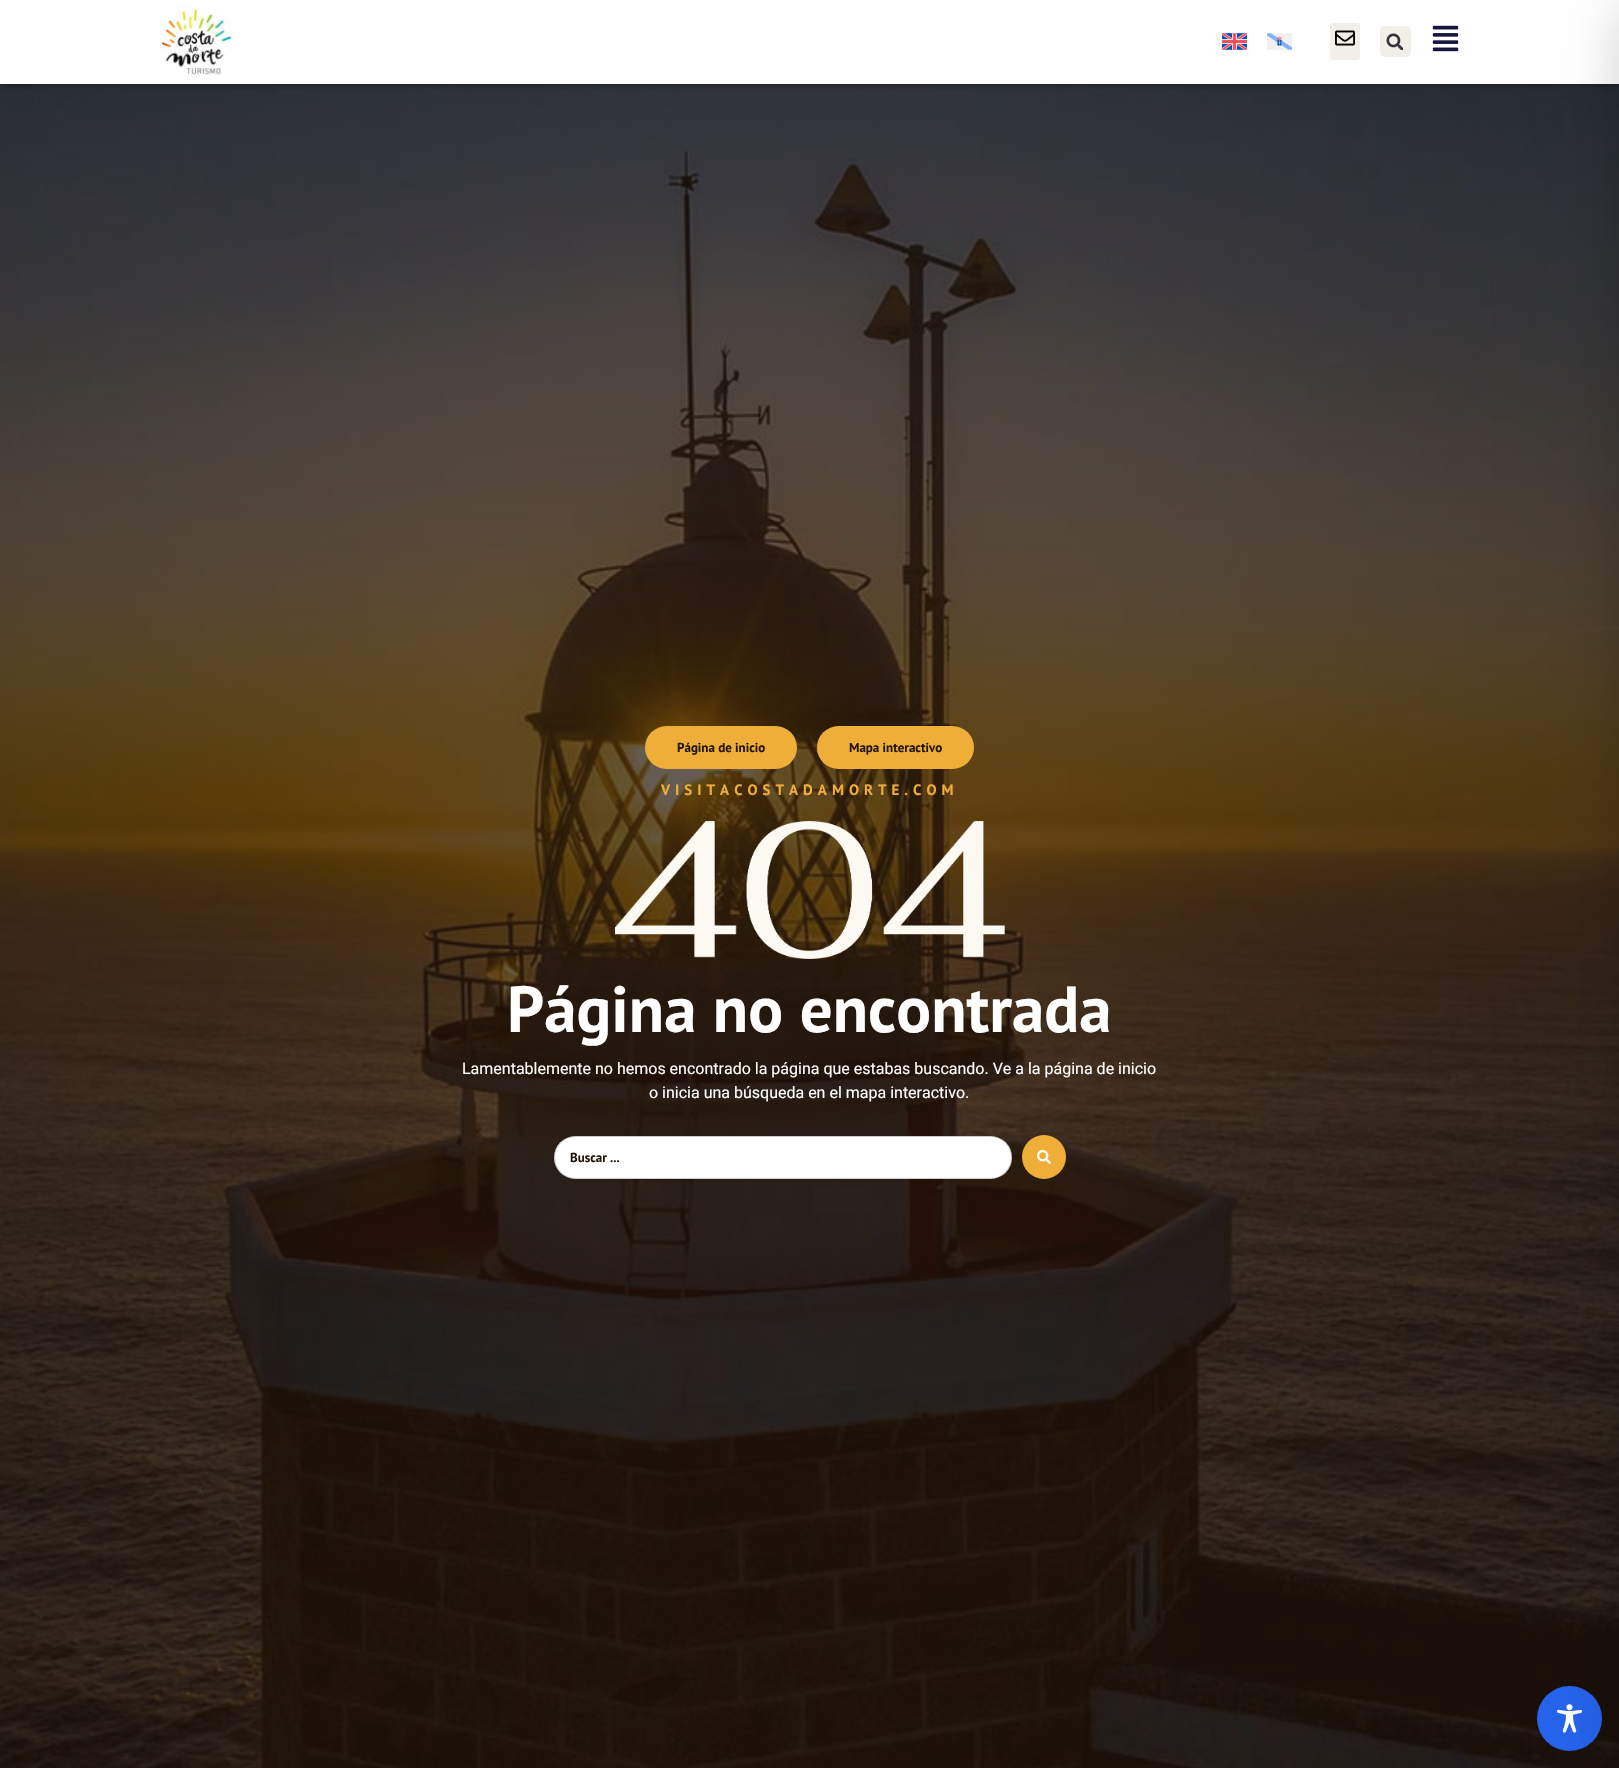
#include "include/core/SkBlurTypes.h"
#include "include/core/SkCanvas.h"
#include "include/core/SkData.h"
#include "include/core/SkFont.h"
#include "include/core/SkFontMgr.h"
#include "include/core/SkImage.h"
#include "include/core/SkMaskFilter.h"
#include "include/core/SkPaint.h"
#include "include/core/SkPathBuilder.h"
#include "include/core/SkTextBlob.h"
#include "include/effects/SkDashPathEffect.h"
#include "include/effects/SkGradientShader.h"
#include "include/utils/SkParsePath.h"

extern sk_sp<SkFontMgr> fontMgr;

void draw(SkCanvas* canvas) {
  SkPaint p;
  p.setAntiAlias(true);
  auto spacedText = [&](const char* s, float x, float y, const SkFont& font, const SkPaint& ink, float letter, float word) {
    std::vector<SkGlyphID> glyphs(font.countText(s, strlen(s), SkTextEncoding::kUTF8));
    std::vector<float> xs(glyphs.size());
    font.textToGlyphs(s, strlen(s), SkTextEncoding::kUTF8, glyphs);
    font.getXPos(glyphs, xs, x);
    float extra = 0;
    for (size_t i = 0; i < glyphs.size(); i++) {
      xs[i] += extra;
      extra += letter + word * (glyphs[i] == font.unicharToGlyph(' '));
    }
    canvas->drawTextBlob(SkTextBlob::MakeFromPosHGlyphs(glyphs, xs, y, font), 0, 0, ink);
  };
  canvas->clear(SK_ColorWHITE);
  canvas->drawImageRect(SkImages::DeferredFromEncodedData(SkData::MakeFromFileName("images/7.png")), SkRect::MakeLTRB(0, 84, 1619, 1768), SkSamplingOptions());
  p.setColor(SkColorSetARGB(128, 0, 0, 0));
  p.setMaskFilter(SkMaskFilter::MakeBlur(kNormal_SkBlurStyle, 3));
  canvas->drawRect(SkRect::MakeLTRB(0, 0, 1619, 84), p);
  p.setMaskFilter(nullptr);
  p.setColor(SK_ColorWHITE);
  canvas->drawRect(SkRect::MakeLTRB(0, 0, 1619, 84), p);
  canvas->drawImageRect(SkImages::DeferredFromEncodedData(SkData::MakeFromFileName("images/1.png")), SkRect::MakeLTRB(160, 5, 233, 76), SkSamplingOptions());
  canvas->drawImageRect(SkImages::DeferredFromEncodedData(SkData::MakeFromFileName("images/2.png")), SkRect::MakeLTRB(1222, 33, 1247, 50), SkSamplingOptions());
  canvas->drawImageRect(SkImages::DeferredFromEncodedData(SkData::MakeFromFileName("images/3.png")), SkRect::MakeLTRB(1267, 33, 1292, 50), SkSamplingOptions());
  p.setColor(SkColorSetRGB(242, 239, 232));
  canvas->drawRoundRect(SkRect::MakeLTRB(1330, 23, 1360, 60), 3, 3, p);
  canvas->drawImageRect(SkImages::DeferredFromEncodedData(SkData::MakeFromFileName("images/4.png")), SkRect::MakeLTRB(1335, 30, 1355, 46), SkSamplingOptions());
  canvas->drawRoundRect(SkRect::MakeLTRB(1380, 26, 1411, 57), 5, 5, p);
  canvas->drawImageRect(SkImages::DeferredFromEncodedData(SkData::MakeFromFileName("images/5.png")), SkRect::MakeLTRB(1386, 33, 1403, 50), SkSamplingOptions());
  canvas->drawImageRect(SkImages::DeferredFromEncodedData(SkData::MakeFromFileName("images/6.png")), SkRect::MakeLTRB(1432, 25, 1459, 52), SkSamplingOptions());
  p.setColor(SkColorSetRGB(239, 174, 55));
  canvas->drawRoundRect(SkRect::MakeLTRB(645, 726, 797, 769), 21.5f, 21.5f, p);
  canvas->drawRoundRect(SkRect::MakeLTRB(817, 726, 974, 769), 21.5f, 21.5f, p);
  canvas->drawImageRect(SkImages::DeferredFromEncodedData(SkData::MakeFromFileName("images/8.png")), SkRect::MakeLTRB(615, 821, 1005, 959), SkSamplingOptions());
  p.setColor(SK_ColorWHITE);
  canvas->drawRoundRect(SkRect::MakeLTRB(554, 1136, 1012, 1179), 21.5f, 21.5f, p);
  p.setStyle(SkPaint::kStroke_Style);
  p.setStrokeWidth(1);
  p.setColor(SkColorSetARGB(51, 0, 0, 0));
  canvas->drawRoundRect(SkRect::MakeLTRB(554.5f, 1136.5f, 1011.5f, 1178.5f), 21, 21, p);
  p.setStyle(SkPaint::kFill_Style);
  p.setColor(SkColorSetRGB(239, 174, 55));
  canvas->drawCircle(1044, 1157, 22, p);
  canvas->drawImageRect(SkImages::DeferredFromEncodedData(SkData::MakeFromFileName("images/9.png")), SkRect::MakeLTRB(1037, 1150, 1051, 1164), SkSamplingOptions());
  p.setColor(SkColorSetRGB(37, 99, 235));
  canvas->drawCircle(1569.5f, 1718.5f, 32.5f, p);
  canvas->drawImageRect(SkImages::DeferredFromEncodedData(SkData::MakeFromFileName("images/10.png")), SkRect::MakeLTRB(1557, 1704, 1582, 1733), SkSamplingOptions());
  p.setColor(SkColorSetARGB(51, 0, 0, 0));
  p.setMaskFilter(SkMaskFilter::MakeBlur(kNormal_SkBlurStyle, 30));
  canvas->drawRect(SkRect::MakeLTRB(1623, 10, 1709, 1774), p);
  p.setMaskFilter(nullptr);
  SkFont font1(fontMgr->matchFamilyStyle("PT Sans", SkFontStyle::Bold()), 13);
  font1.setSubpixel(true);
  p.setColor(SkColorSetRGB(36, 22, 11));
  canvas->drawString("Página de inicio", 677, 752, font1, p);
  canvas->drawString("Mapa interactivo", 849, 752, font1, p);
  SkFont font2(fontMgr->matchFamilyStyle("PT Sans", SkFontStyle::Bold()), 15);
  font2.setSubpixel(true);
  p.setColor(SkColorSetRGB(239, 174, 55));
  spacedText("VISITACOSTADAMORTE.COM", 661, 795, font2, p, 5, 0);
  SkFont font3(fontMgr->matchFamilyStyle("PT Sans", SkFontStyle::Bold()), 65);
  font3.setSubpixel(true);
  p.setColor(SK_ColorWHITE);
  canvas->drawString("Página no encontrada", 507, 1032, font3, p);
  SkFont font4(fontMgr->matchFamilyStyle("Roboto", SkFontStyle::Normal()), 16);
  font4.setSubpixel(true);
  canvas->drawString("Lamentablemente no hemos encontrado la página que estabas buscando. Ve a la página de inicio", 462, 1074, font4, p);
  canvas->drawString("o inicia una búsqueda en el mapa interactivo.", 649, 1098, font4, p);
  p.setColor(SkColorSetRGB(36, 22, 11));
  canvas->drawString("Buscar ...", 570, 1162, font1, p);
}
